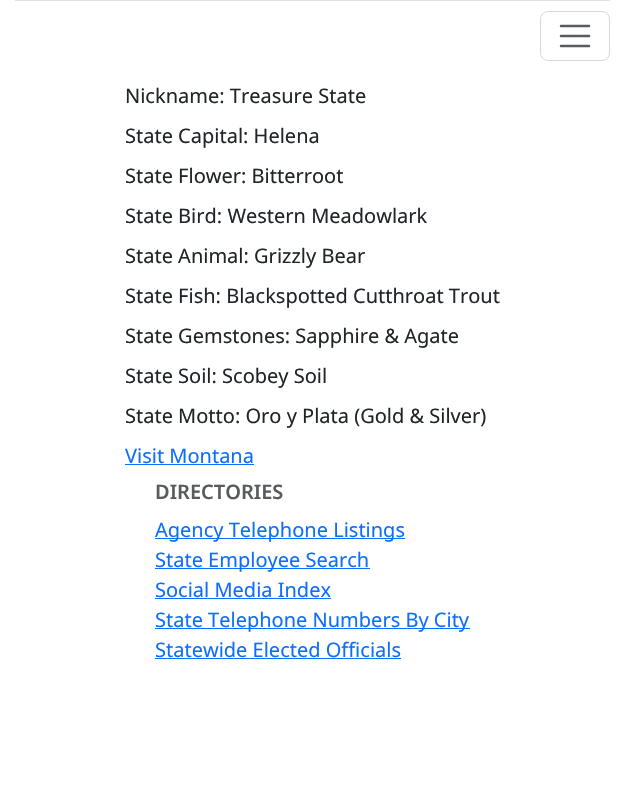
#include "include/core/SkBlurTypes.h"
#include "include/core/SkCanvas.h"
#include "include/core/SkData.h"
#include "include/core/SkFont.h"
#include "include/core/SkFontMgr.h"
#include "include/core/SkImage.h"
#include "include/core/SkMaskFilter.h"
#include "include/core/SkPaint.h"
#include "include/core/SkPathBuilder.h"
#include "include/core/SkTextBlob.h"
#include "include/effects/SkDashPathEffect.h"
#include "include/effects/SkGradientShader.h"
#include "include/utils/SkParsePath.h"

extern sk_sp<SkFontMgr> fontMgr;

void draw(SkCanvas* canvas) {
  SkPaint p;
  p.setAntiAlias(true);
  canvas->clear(SK_ColorWHITE);
  p.setColor(SkColorSetRGB(222, 226, 230));
  canvas->drawRect(SkRect::MakeLTRB(15, 0, 610, 1), p);
  p.setStyle(SkPaint::kStroke_Style);
  p.setStrokeWidth(1);
  p.setColor(SkColorSetRGB(217, 217, 217));
  canvas->drawRoundRect(SkRect::MakeLTRB(540.5f, 11.5f, 609.5f, 60.5f), 7.5f, 7.5f, p);
  p.setStrokeWidth(2.5f);
  p.setStrokeCap(SkPaint::kRound_Cap);
  p.setColor(SkColorSetRGB(89, 92, 95));
  canvas->drawPath(SkPathBuilder().moveTo(561, 26).lineTo(589, 26).moveTo(561, 36).lineTo(589, 36).moveTo(561, 46).lineTo(589, 46).detach(), p);
  p.setStyle(SkPaint::kFill_Style);
  p.setColor(SkColorSetRGB(13, 110, 253));
  canvas->drawRect(SkRect::MakeLTRB(125, 464, 254, 465), p);
  canvas->drawRect(SkRect::MakeLTRB(155, 538, 405, 539), p);
  canvas->drawRect(SkRect::MakeLTRB(155, 568, 370, 569), p);
  canvas->drawRect(SkRect::MakeLTRB(155, 598, 331, 599), p);
  canvas->drawRect(SkRect::MakeLTRB(155, 628, 470, 629), p);
  canvas->drawRect(SkRect::MakeLTRB(155, 658, 401, 659), p);
  SkFont font1(fontMgr->matchFamilyStyle("Noto Sans", SkFontStyle::Normal()), 20);
  font1.setSubpixel(true);
  p.setColor(SkColorSetRGB(33, 37, 41));
  canvas->drawString("Nickname: Treasure State", 125, 103, font1, p);
  canvas->drawString("State Capital: Helena", 125, 143, font1, p);
  canvas->drawString("State Flower: Bitterroot", 125, 183, font1, p);
  canvas->drawString("State Bird: Western Meadowlark", 125, 223, font1, p);
  canvas->drawString("State Animal: Grizzly Bear", 125, 263, font1, p);
  canvas->drawString("State Fish: Blackspotted Cutthroat Trout", 125, 303, font1, p);
  canvas->drawString("State Gemstones: Sapphire & Agate", 125, 343, font1, p);
  canvas->drawString("State Soil: Scobey Soil", 125, 383, font1, p);
  canvas->drawString("State Motto: Oro y Plata (Gold & Silver)", 125, 423, font1, p);
  p.setColor(SkColorSetRGB(13, 110, 253));
  canvas->drawString("Visit Montana", 125, 463, font1, p);
  SkFont font2(fontMgr->matchFamilyStyle("Noto Sans", SkFontStyle(600, SkFontStyle::kNormal_Width, SkFontStyle::kUpright_Slant)), 20);
  font2.setSubpixel(true);
  p.setColor(SkColorSetRGB(89, 92, 95));
  canvas->drawString("DIRECTORIES", 155, 499, font2, p);
  p.setColor(SkColorSetRGB(13, 110, 253));
  canvas->drawString("Agency Telephone Listings", 155, 537, font1, p);
  canvas->drawString("State Employee Search", 155, 567, font1, p);
  canvas->drawString("Social Media Index", 155, 597, font1, p);
  canvas->drawString("State Telephone Numbers By City", 155, 627, font1, p);
  canvas->drawString("Statewide Elected Officials", 155, 657, font1, p);
}
